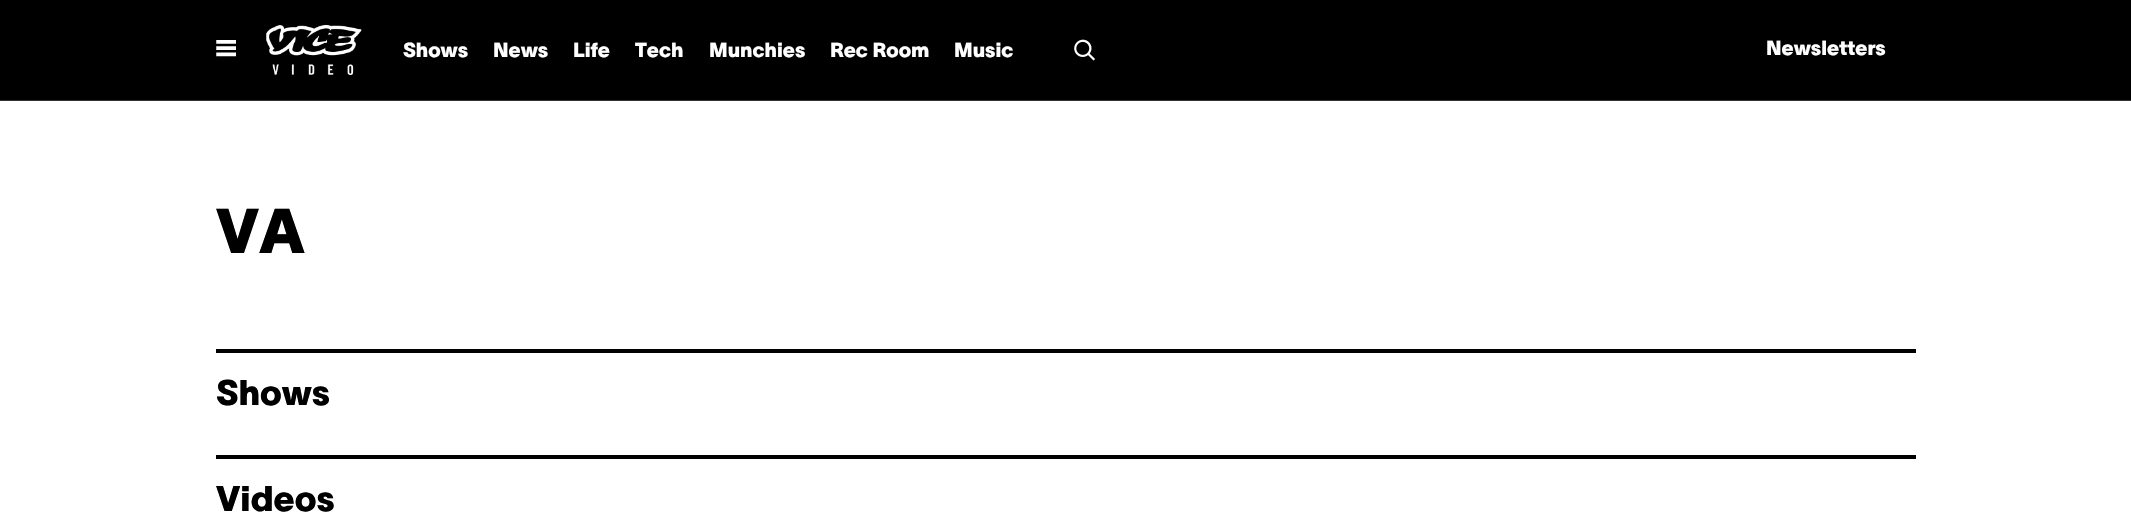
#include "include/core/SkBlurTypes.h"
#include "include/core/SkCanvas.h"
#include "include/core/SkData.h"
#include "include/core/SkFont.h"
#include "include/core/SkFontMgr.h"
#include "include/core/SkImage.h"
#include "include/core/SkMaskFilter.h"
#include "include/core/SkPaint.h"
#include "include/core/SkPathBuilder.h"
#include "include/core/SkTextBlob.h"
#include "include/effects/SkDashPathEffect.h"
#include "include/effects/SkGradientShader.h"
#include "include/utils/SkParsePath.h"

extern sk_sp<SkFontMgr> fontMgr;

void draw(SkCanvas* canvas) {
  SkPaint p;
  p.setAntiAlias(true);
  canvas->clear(SK_ColorWHITE);
  p.setColor(SK_ColorBLACK);
  canvas->drawRect(SkRect::MakeLTRB(0, 0, 2131, 100), p);
  p.setColor(SkColorSetRGB(51, 51, 51));
  canvas->drawRect(SkRect::MakeLTRB(0, 100, 2131, 101), p);
  canvas->drawImageRect(SkImages::DeferredFromEncodedData(SkData::MakeFromFileName("images/1.png")), SkRect::MakeLTRB(216, 40, 236, 57), SkSamplingOptions());
  canvas->drawImageRect(SkImages::DeferredFromEncodedData(SkData::MakeFromFileName("images/2.png")), SkRect::MakeLTRB(266, 25, 362, 75), SkSamplingOptions());
  canvas->drawImageRect(SkImages::DeferredFromEncodedData(SkData::MakeFromFileName("images/3.png")), SkRect::MakeLTRB(1074, 39, 1095, 61), SkSamplingOptions());
  p.setColor(SK_ColorBLACK);
  canvas->drawRect(SkRect::MakeLTRB(216, 349, 1916, 353), p);
  canvas->drawRect(SkRect::MakeLTRB(216, 455, 1916, 459), p);
  SkFont font1(fontMgr->matchFamilyStyle("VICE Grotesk", SkFontStyle(900, SkFontStyle::kNormal_Width, SkFontStyle::kUpright_Slant)), 20);
  font1.setSubpixel(true);
  p.setColor(SK_ColorWHITE);
  canvas->drawString("Shows", 403, 57, font1, p);
  canvas->drawString("News", 493, 57, font1, p);
  canvas->drawString("Life", 573, 57, font1, p);
  canvas->drawString("Tech", 635, 57, font1, p);
  canvas->drawString("Munchies", 709, 57, font1, p);
  canvas->drawString("Rec Room", 830, 57, font1, p);
  canvas->drawString("Music", 954, 57, font1, p);
  canvas->drawString("Newsletters", 1766, 55, font1, p);
  SkFont font2(fontMgr->matchFamilyStyle("VICE Grotesk", SkFontStyle(900, SkFontStyle::kNormal_Width, SkFontStyle::kUpright_Slant)), 62);
  font2.setSubpixel(true);
  p.setColor(SK_ColorBLACK);
  canvas->drawString("VA", 216, 253, font2, p);
  SkFont font3(fontMgr->matchFamilyStyle("VICE Grotesk", SkFontStyle(900, SkFontStyle::kNormal_Width, SkFontStyle::kUpright_Slant)), 35);
  font3.setSubpixel(true);
  canvas->drawString("Shows", 216, 405, font3, p);
  canvas->drawString("Videos", 216, 511, font3, p);
}
